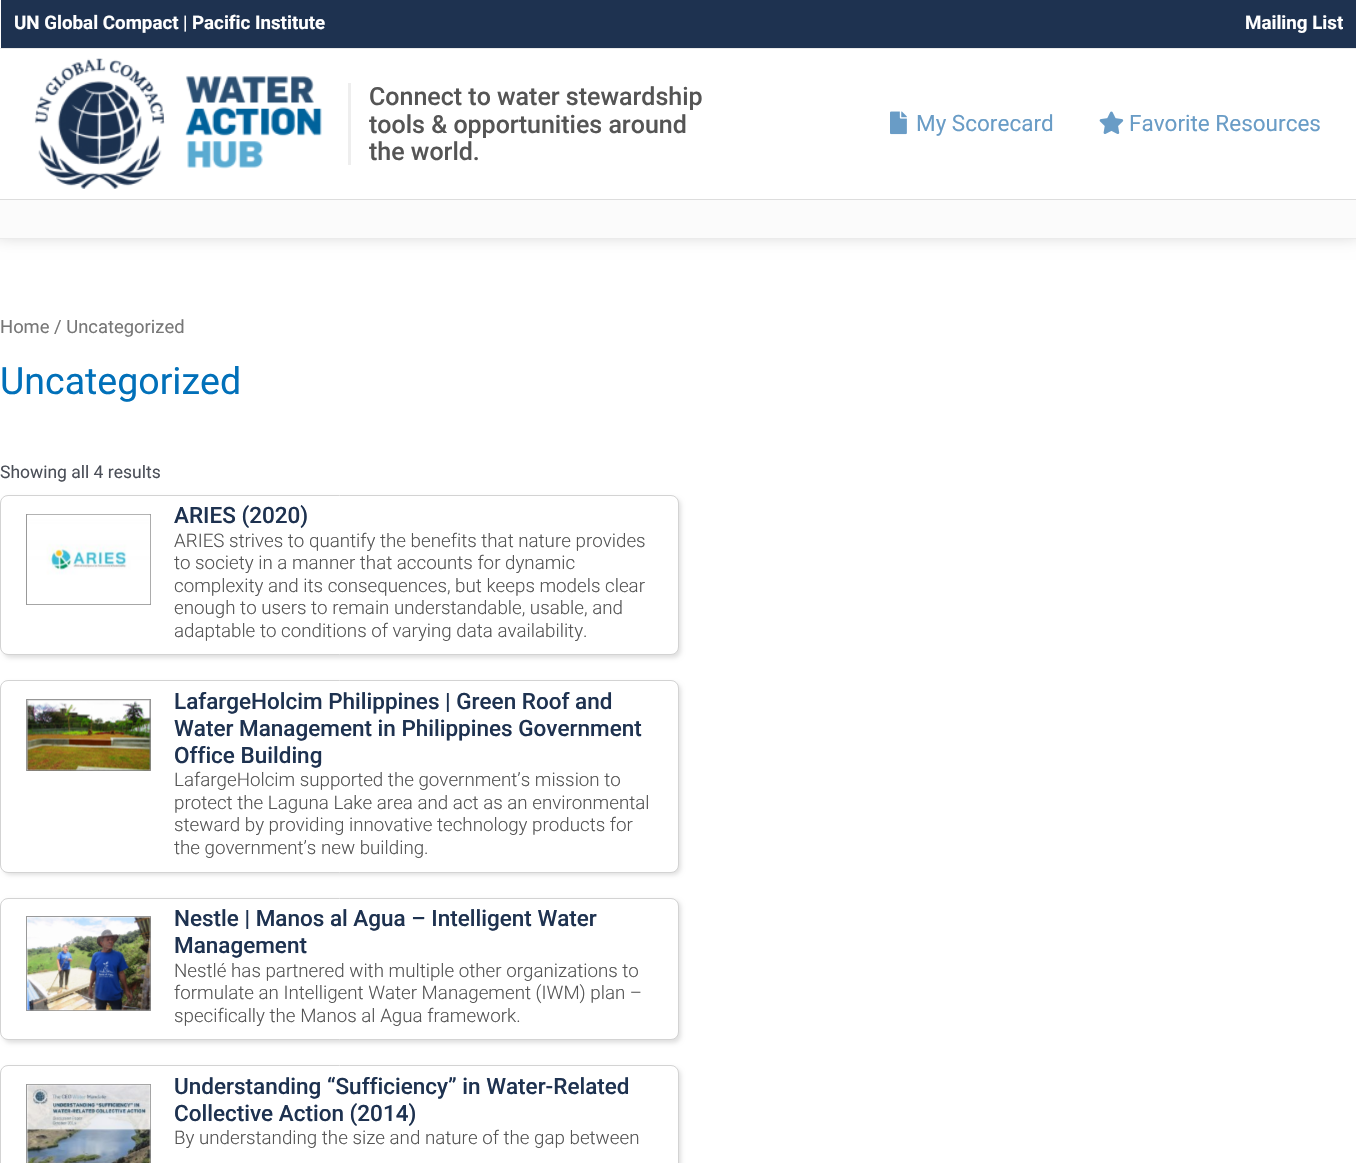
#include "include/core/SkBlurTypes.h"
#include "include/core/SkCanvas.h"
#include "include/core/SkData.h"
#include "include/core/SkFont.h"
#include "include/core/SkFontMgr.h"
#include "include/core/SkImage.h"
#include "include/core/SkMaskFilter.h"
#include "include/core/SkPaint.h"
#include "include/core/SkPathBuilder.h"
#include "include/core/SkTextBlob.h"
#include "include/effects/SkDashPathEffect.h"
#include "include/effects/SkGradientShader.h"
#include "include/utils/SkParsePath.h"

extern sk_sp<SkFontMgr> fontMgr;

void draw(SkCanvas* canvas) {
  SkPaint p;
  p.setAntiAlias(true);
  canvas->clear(SK_ColorWHITE);
  p.setColor(SkColorSetRGB(187, 187, 187));
  p.setMaskFilter(SkMaskFilter::MakeBlur(kNormal_SkBlurStyle, 9));
  canvas->drawRect(SkRect::MakeLTRB(-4, -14, 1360, 233), p);
  p.setMaskFilter(nullptr);
  p.setColor(SK_ColorWHITE);
  canvas->drawRect(SkRect::MakeLTRB(0, 0, 1356, 199), p);
  p.setColor(SkColorSetRGB(235, 235, 235));
  canvas->drawRect(SkRect::MakeLTRB(0, 238, 1356, 239), p);
  p.setColor(SkColorSetRGB(234, 234, 234));
  canvas->drawRect(SkRect::MakeLTRB(0, 48, 1356, 49), p);
  p.setColor(SkColorSetRGB(30, 50, 80));
  canvas->drawRect(SkRect::MakeLTRB(1, 0, 1356, 48), p);
  p.setColor(SkColorSetRGB(221, 221, 221));
  canvas->drawRect(SkRect::MakeLTRB(0, 199, 1356, 200), p);
  canvas->drawImageRect(SkImages::DeferredFromEncodedData(SkData::MakeFromFileName("images/1.png")), SkRect::MakeLTRB(34, 58, 322, 189), SkSamplingOptions());
  p.setColor(SkColorSetRGB(238, 238, 238));
  canvas->drawRect(SkRect::MakeLTRB(348, 83, 351, 165), p);
  canvas->drawImageRect(SkImages::DeferredFromEncodedData(SkData::MakeFromFileName("images/2.png")), SkRect::MakeLTRB(890, 111, 907, 135), SkSamplingOptions());
  canvas->drawImageRect(SkImages::DeferredFromEncodedData(SkData::MakeFromFileName("images/3.png")), SkRect::MakeLTRB(1099, 111, 1124, 134), SkSamplingOptions());
  p.setColor(SkColorSetRGB(251, 251, 251));
  canvas->drawRect(SkRect::MakeLTRB(0, 200, 1356, 238), p);
  p.setColor(SkColorSetRGB(224, 224, 224));
  p.setMaskFilter(SkMaskFilter::MakeBlur(kNormal_SkBlurStyle, 2));
  canvas->drawRoundRect(SkRect::MakeLTRB(3, 498, 681, 658), 8, 8, p);
  p.setMaskFilter(nullptr);
  p.setColor(SK_ColorWHITE);
  canvas->drawRoundRect(SkRect::MakeLTRB(0.5f, 495.5f, 678.5f, 654.5f), 7.5f, 7.5f, p);
  p.setStyle(SkPaint::kStroke_Style);
  p.setStrokeWidth(1);
  p.setColor(SkColorSetRGB(211, 211, 211));
  canvas->drawRoundRect(SkRect::MakeLTRB(0.5f, 495.5f, 678.5f, 654.5f), 7.5f, 7.5f, p);
  p.setColor(SkColorSetRGB(153, 153, 153));
  canvas->drawRect(SkRect::MakeLTRB(26.5f, 514.5f, 150.5f, 604.5f), p);
  canvas->drawImageRect(SkImages::DeferredFromEncodedData(SkData::MakeFromFileName("images/4.png")), SkRect::MakeLTRB(27, 514, 151, 605), SkSamplingOptions());
  p.setStyle(SkPaint::kFill_Style);
  p.setColor(SkColorSetRGB(224, 224, 224));
  p.setMaskFilter(SkMaskFilter::MakeBlur(kNormal_SkBlurStyle, 2));
  canvas->drawRoundRect(SkRect::MakeLTRB(3, 683, 681, 875), 8, 8, p);
  p.setMaskFilter(nullptr);
  p.setColor(SK_ColorWHITE);
  canvas->drawRoundRect(SkRect::MakeLTRB(0.5f, 680.5f, 678.5f, 872.5f), 7.5f, 7.5f, p);
  p.setStyle(SkPaint::kStroke_Style);
  p.setColor(SkColorSetRGB(211, 211, 211));
  canvas->drawRoundRect(SkRect::MakeLTRB(0.5f, 680.5f, 678.5f, 872.5f), 7.5f, 7.5f, p);
  p.setColor(SkColorSetRGB(153, 153, 153));
  canvas->drawRect(SkRect::MakeLTRB(26.5f, 699.5f, 150.5f, 770.5f), p);
  canvas->drawImageRect(SkImages::DeferredFromEncodedData(SkData::MakeFromFileName("images/5.png")), SkRect::MakeLTRB(27, 699, 151, 771), SkSamplingOptions());
  p.setStyle(SkPaint::kFill_Style);
  p.setColor(SkColorSetRGB(224, 224, 224));
  p.setMaskFilter(SkMaskFilter::MakeBlur(kNormal_SkBlurStyle, 2));
  canvas->drawRoundRect(SkRect::MakeLTRB(3, 900, 681, 1043), 8, 8, p);
  p.setMaskFilter(nullptr);
  p.setColor(SK_ColorWHITE);
  canvas->drawRoundRect(SkRect::MakeLTRB(0.5f, 898.5f, 678.5f, 1039.5f), 7.5f, 7.5f, p);
  p.setStyle(SkPaint::kStroke_Style);
  p.setColor(SkColorSetRGB(211, 211, 211));
  canvas->drawRoundRect(SkRect::MakeLTRB(0.5f, 898.5f, 678.5f, 1039.5f), 7.5f, 7.5f, p);
  p.setColor(SkColorSetRGB(153, 153, 153));
  canvas->drawRect(SkRect::MakeLTRB(26.5f, 916.5f, 150.5f, 1010.5f), p);
  canvas->drawImageRect(SkImages::DeferredFromEncodedData(SkData::MakeFromFileName("images/6.png")), SkRect::MakeLTRB(27, 917, 151, 1011), SkSamplingOptions());
  p.setStyle(SkPaint::kFill_Style);
  p.setColor(SkColorSetRGB(224, 224, 224));
  p.setMaskFilter(SkMaskFilter::MakeBlur(kNormal_SkBlurStyle, 2));
  canvas->drawRoundRect(SkRect::MakeLTRB(3, 1068, 681, 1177), 8, 8, p);
  p.setMaskFilter(nullptr);
  p.setColor(SK_ColorWHITE);
  canvas->drawRoundRect(SkRect::MakeLTRB(0.5f, 1065.5f, 678.5f, 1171.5f), 7.5f, 7.5f, p);
  p.setStyle(SkPaint::kStroke_Style);
  p.setColor(SkColorSetRGB(211, 211, 211));
  canvas->drawRoundRect(SkRect::MakeLTRB(0.5f, 1065.5f, 678.5f, 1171.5f), 7.5f, 7.5f, p);
  p.setColor(SkColorSetRGB(153, 153, 153));
  canvas->drawRect(SkRect::MakeLTRB(26.5f, 1084.5f, 150.5f, 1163.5f), p);
  canvas->drawImageRect(SkImages::DeferredFromEncodedData(SkData::MakeFromFileName("images/7.png")), SkRect::MakeLTRB(27, 1084, 151, 1163), SkSamplingOptions());
  SkFont font1(fontMgr->matchFamilyStyle("Roboto", SkFontStyle::Bold()), 18.75f);
  font1.setSubpixel(true);
  p.setStyle(SkPaint::kFill_Style);
  p.setColor(SK_ColorWHITE);
  canvas->drawString("UN Global Compact", 14, 29, font1, p);
  SkFont font2(fontMgr->matchFamilyStyle("Roboto", SkFontStyle::Normal()), 18.75f);
  font2.setSubpixel(true);
  canvas->drawString("|", 183, 29, font2, p);
  canvas->drawString("Pacific Institute", 192, 29, font1, p);
  canvas->drawString("Mailing List", 1245, 29, font1, p);
  SkFont font3(fontMgr->matchFamilyStyle("Roboto", SkFontStyle(500, SkFontStyle::kNormal_Width, SkFontStyle::kUpright_Slant)), 25);
  font3.setSubpixel(true);
  p.setColor(SkColorSetRGB(85, 85, 85));
  canvas->drawString("Connect to water stewardship", 369, 105, font3, p);
  canvas->drawString("tools & opportunities around", 369, 133, font3, p);
  canvas->drawString("the world.", 369, 160, font3, p);
  SkFont font4(fontMgr->matchFamilyStyle("Roboto", SkFontStyle::Normal()), 22.5f);
  font4.setSubpixel(true);
  p.setColor(SkColorSetRGB(105, 156, 198));
  canvas->drawString("My Scorecard", 916, 131, font4, p);
  canvas->drawString("Favorite Resources", 1129, 131, font4, p);
  SkFont font5(fontMgr->matchFamilyStyle("Roboto", SkFontStyle::Normal()), 18.4f);
  font5.setSubpixel(true);
  p.setColor(SkColorSetRGB(119, 119, 119));
  canvas->drawString("Home / Uncategorized", 0, 333, font5, p);
  SkFont font6(fontMgr->matchFamilyStyle("Roboto", SkFontStyle::Normal()), 37.5f);
  font6.setSubpixel(true);
  p.setColor(SkColorSetRGB(1, 112, 185));
  canvas->drawString("Uncategorized", 0, 394, font6, p);
  SkFont font7(fontMgr->matchFamilyStyle("Roboto", SkFontStyle::Normal()), 17.5f);
  font7.setSubpixel(true);
  p.setColor(SkColorSetRGB(75, 79, 88));
  canvas->drawString("Showing all 4 results", 0, 478, font7, p);
  SkFont font8(fontMgr->matchFamilyStyle("Roboto", SkFontStyle(500, SkFontStyle::kNormal_Width, SkFontStyle::kUpright_Slant)), 22.5f);
  font8.setSubpixel(true);
  p.setColor(SkColorSetRGB(30, 50, 80));
  canvas->drawString("ARIES (2020)", 174, 523, font8, p);
  SkFont font9(fontMgr->matchFamilyStyle("Roboto", SkFontStyle(300, SkFontStyle::kNormal_Width, SkFontStyle::kUpright_Slant)), 18.75f);
  font9.setSubpixel(true);
  p.setColor(SkColorSetRGB(85, 85, 85));
  canvas->drawString("ARIES strives to quantify the benefits that nature provides", 174, 547, font9, p);
  canvas->drawString("to society in a manner that accounts for dynamic", 174, 569, font9, p);
  canvas->drawString("complexity and its consequences, but keeps models clear", 174, 592, font9, p);
  canvas->drawString("enough to users to remain understandable, usable, and", 174, 614, font9, p);
  canvas->drawString("adaptable to conditions of varying data availability.", 174, 637, font9, p);
  p.setColor(SkColorSetRGB(30, 50, 80));
  canvas->drawString("LafargeHolcim Philippines | Green Roof and", 174, 709, font8, p);
  canvas->drawString("Water Management in Philippines Government", 174, 736, font8, p);
  canvas->drawString("Office Building", 174, 763, font8, p);
  p.setColor(SkColorSetRGB(85, 85, 85));
  canvas->drawString("LafargeHolcim supported the government’s mission to", 174, 786, font9, p);
  canvas->drawString("protect the Laguna Lake area and act as an environmental", 174, 809, font9, p);
  canvas->drawString("steward by providing innovative technology products for", 174, 831, font9, p);
  canvas->drawString("the government’s new building.", 174, 854, font9, p);
  p.setColor(SkColorSetRGB(30, 50, 80));
  canvas->drawString("Nestle | Manos al Agua – Intelligent Water", 174, 926, font8, p);
  canvas->drawString("Management", 174, 953, font8, p);
  p.setColor(SkColorSetRGB(85, 85, 85));
  canvas->drawString("Nestlé has partnered with multiple other organizations to", 174, 977, font9, p);
  canvas->drawString("formulate an Intelligent Water Management (IWM) plan –", 174, 999, font9, p);
  canvas->drawString("specifically the Manos al Agua framework.", 174, 1022, font9, p);
  p.setColor(SkColorSetRGB(30, 50, 80));
  canvas->drawString("Understanding “Sufficiency” in Water-Related", 174, 1094, font8, p);
  canvas->drawString("Collective Action (2014)", 174, 1121, font8, p);
  p.setColor(SkColorSetRGB(85, 85, 85));
  canvas->drawString("By understanding the size and nature of the gap between", 174, 1144, font9, p);
}
